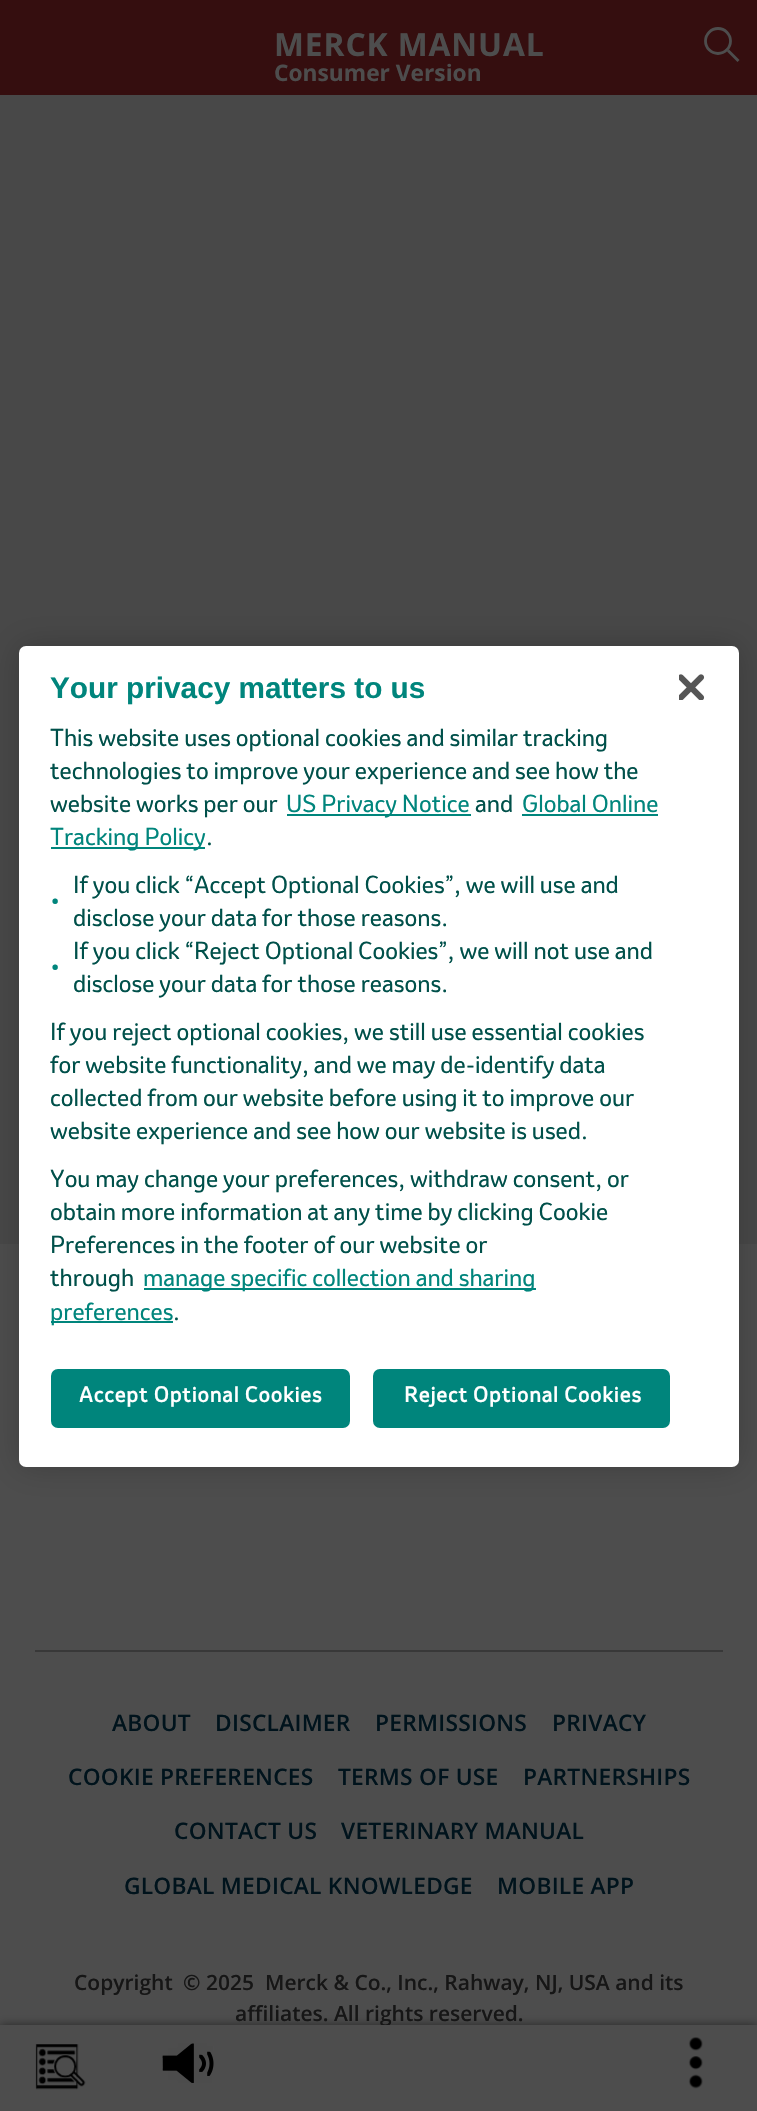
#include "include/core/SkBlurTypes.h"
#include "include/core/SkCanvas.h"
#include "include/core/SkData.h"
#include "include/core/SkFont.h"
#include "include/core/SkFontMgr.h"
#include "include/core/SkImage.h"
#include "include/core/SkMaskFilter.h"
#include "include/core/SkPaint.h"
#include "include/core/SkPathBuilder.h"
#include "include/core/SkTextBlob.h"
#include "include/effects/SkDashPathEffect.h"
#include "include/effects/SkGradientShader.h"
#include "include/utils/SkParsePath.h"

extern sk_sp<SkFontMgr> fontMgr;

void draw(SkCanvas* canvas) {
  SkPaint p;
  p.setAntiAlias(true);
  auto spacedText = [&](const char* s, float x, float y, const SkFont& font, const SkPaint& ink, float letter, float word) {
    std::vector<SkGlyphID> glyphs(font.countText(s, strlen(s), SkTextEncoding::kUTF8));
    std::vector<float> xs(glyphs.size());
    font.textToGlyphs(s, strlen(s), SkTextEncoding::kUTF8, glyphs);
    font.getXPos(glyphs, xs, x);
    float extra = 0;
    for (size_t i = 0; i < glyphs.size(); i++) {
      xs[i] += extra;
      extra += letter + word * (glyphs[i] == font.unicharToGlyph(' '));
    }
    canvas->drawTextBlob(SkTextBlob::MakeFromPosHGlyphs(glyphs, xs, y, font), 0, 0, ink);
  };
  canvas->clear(SkColorSetRGB(72, 72, 72));
  p.setColor(SkColorSetRGB(53, 14, 15));
  canvas->drawRect(SkRect::MakeLTRB(0, 0, 757, 95), p);
  p.setStyle(SkPaint::kStroke_Style);
  p.setStrokeWidth(2.8f);
  p.setColor(SkColorSetRGB(77, 77, 77));
  canvas->drawCircle(718, 41, 12.5f, p);
  canvas->drawPath(SkPathBuilder().moveTo(738.5f, 61).lineTo(728, 50.5f).detach(), p);
  p.setStyle(SkPaint::kFill_Style);
  canvas->drawRect(SkRect::MakeLTRB(0, 1244, 757, 2025), p);
  p.setColor(SkColorSetRGB(56, 56, 56));
  canvas->drawRect(SkRect::MakeLTRB(35, 1650, 723, 1652), p);
  p.setColor(SkColorSetARGB(128, 0, 0, 0));
  p.setMaskFilter(SkMaskFilter::MakeBlur(kNormal_SkBlurStyle, 4.5f));
  canvas->drawRect(SkRect::MakeLTRB(0, 2025, 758, 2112), p);
  p.setMaskFilter(nullptr);
  p.setColor(SkColorSetARGB(51, 0, 0, 0));
  p.setMaskFilter(SkMaskFilter::MakeBlur(kNormal_SkBlurStyle, 16));
  canvas->drawRoundRect(SkRect::MakeLTRB(19, 646, 739, 1467), 7, 7, p);
  p.setMaskFilter(nullptr);
  p.setColor(SK_ColorWHITE);
  canvas->drawRoundRect(SkRect::MakeLTRB(19, 646, 739, 1467), 7, 7, p);
  p.setColor(SkColorSetRGB(0, 133, 124));
  canvas->drawRect(SkRect::MakeLTRB(287, 814, 471, 816), p);
  canvas->drawRect(SkRect::MakeLTRB(522, 814, 658, 816), p);
  canvas->drawRect(SkRect::MakeLTRB(51, 847, 205, 849), p);
  canvas->drawRect(SkRect::MakeLTRB(144, 1288, 536, 1290), p);
  canvas->drawRect(SkRect::MakeLTRB(51, 1321, 173, 1323), p);
  canvas->drawImageRect(SkImages::DeferredFromEncodedData(SkData::MakeFromFileName("images/4.png")), SkRect::MakeLTRB(679, 674, 705, 700), SkSamplingOptions());
  canvas->drawRoundRect(SkRect::MakeLTRB(52, 1370, 349, 1427), 6, 6, p);
  p.setStyle(SkPaint::kStroke_Style);
  p.setStrokeWidth(2);
  canvas->drawRoundRect(SkRect::MakeLTRB(52, 1370, 349, 1427), 6, 6, p);
  p.setStyle(SkPaint::kFill_Style);
  canvas->drawRoundRect(SkRect::MakeLTRB(374, 1370, 669, 1427), 6, 6, p);
  p.setStyle(SkPaint::kStroke_Style);
  canvas->drawRoundRect(SkRect::MakeLTRB(374, 1370, 669, 1427), 6, 6, p);
  SkFont font1(fontMgr->matchFamilyStyle("Open Sans", SkFontStyle::Bold()), 31.75f);
  font1.setSubpixel(true);
  p.setStyle(SkPaint::kFill_Style);
  p.setColor(SkColorSetRGB(77, 77, 77));
  spacedText("MERCK MANUAL", 274, 56, font1, p, 0.9f, 0);
  SkFont font2(fontMgr->matchFamilyStyle("Open Sans", SkFontStyle::Bold()), 22.75f);
  font2.setSubpixel(true);
  canvas->drawString("Consumer Version", 274, 81, font2, p);
  SkFont font3(fontMgr->matchFamilyStyle("Open Sans", SkFontStyle(600, SkFontStyle::kNormal_Width, SkFontStyle::kUpright_Slant)), 22.75f);
  font3.setSubpixel(true);
  p.setColor(SkColorSetRGB(0, 19, 28));
  spacedText("ABOUT", 112, 1731, font3, p, 0.25f, 0);
  spacedText("DISCLAIMER", 215, 1731, font3, p, 0.25f, 0);
  spacedText("PERMISSIONS", 375, 1731, font3, p, 0.25f, 0);
  spacedText("PRIVACY", 552, 1731, font3, p, 0.25f, 0);
  spacedText("COOKIE PREFERENCES", 68, 1785, font3, p, 0.25f, 0);
  spacedText("TERMS OF USE", 338, 1785, font3, p, 0.25f, 0);
  spacedText("PARTNERSHIPS", 523, 1785, font3, p, 0.25f, 0);
  spacedText("CONTACT US", 174, 1839, font3, p, 0.25f, 0);
  spacedText("VETERINARY MANUAL", 341, 1839, font3, p, 0.25f, 0);
  spacedText("GLOBAL MEDICAL KNOWLEDGE", 124, 1894, font3, p, 0.25f, 0);
  spacedText("MOBILE APP", 497, 1894, font3, p, 0.25f, 0);
  SkFont font4(fontMgr->matchFamilyStyle("Open Sans", SkFontStyle(600, SkFontStyle::kNormal_Width, SkFontStyle::kUpright_Slant)), 21);
  font4.setSubpixel(true);
  p.setColor(SkColorSetRGB(22, 22, 22));
  canvas->drawString("Copyright", 74, 1990, font4, p);
  canvas->drawString("© 2025", 183, 1990, font4, p);
  canvas->drawString("Merck & Co., Inc., Rahway, NJ, USA and its", 265, 1990, font4, p);
  canvas->drawString("affiliates. All rights reserved.", 235, 2021, font4, p);
  p.setColor(SkColorSetRGB(77, 77, 77));
  canvas->drawRect(SkRect::MakeLTRB(0, 2025, 757, 2111), p);
  canvas->drawImageRect(SkImages::DeferredFromEncodedData(SkData::MakeFromFileName("images/1.png")), SkRect::MakeLTRB(35, 2044, 86, 2090), SkSamplingOptions());
  canvas->drawImageRect(SkImages::DeferredFromEncodedData(SkData::MakeFromFileName("images/2.png")), SkRect::MakeLTRB(162, 2043, 214, 2083), SkSamplingOptions());
  canvas->drawImageRect(SkImages::DeferredFromEncodedData(SkData::MakeFromFileName("images/3.png")), SkRect::MakeLTRB(688, 2037, 703, 2089), SkSamplingOptions());
  SkFont font5(fontMgr->matchFamilyStyle("Liberation Sans", SkFontStyle::Bold()), 29.75f);
  font5.setSubpixel(true);
  p.setColor(SkColorSetRGB(0, 133, 124));
  canvas->drawString("Your privacy matters to us", 50, 698, font5, p);
  SkFont font6(fontMgr->matchFamilyStyle("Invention", SkFontStyle::Normal()), 22.75f);
  font6.setSubpixel(true);
  p.setColor(SkColorSetRGB(0, 80, 74));
  canvas->drawString("This website uses optional cookies and similar tracking", 50, 746, font6, p);
  canvas->drawString("technologies to improve your experience and see how the", 50, 779, font6, p);
  canvas->drawString("website works per our", 50, 812, font6, p);
  p.setColor(SkColorSetRGB(0, 133, 124));
  canvas->drawString("US Privacy Notice", 286, 812, font6, p);
  p.setColor(SkColorSetRGB(0, 80, 74));
  canvas->drawString("and", 475, 812, font6, p);
  p.setColor(SkColorSetRGB(0, 133, 124));
  canvas->drawString("Global Online", 522, 812, font6, p);
  canvas->drawString("Tracking Policy", 50, 845, font6, p);
  p.setColor(SkColorSetRGB(0, 80, 74));
  canvas->drawString(".", 206, 845, font6, p);
  canvas->drawString("If you click “Accept Optional Cookies”, we will use and", 73, 893, font6, p);
  SkFont font7(fontMgr->matchFamilyStyle("Invention", SkFontStyle::Normal()), 27);
  font7.setSubpixel(true);
  p.setColor(SkColorSetRGB(0, 133, 124));
  canvas->drawString("•", 50, 909, font7, p);
  p.setColor(SkColorSetRGB(0, 80, 74));
  canvas->drawString("disclose your data for those reasons.", 73, 926, font6, p);
  canvas->drawString("If you click “Reject Optional Cookies”, we will not use and", 73, 959, font6, p);
  p.setColor(SkColorSetRGB(0, 133, 124));
  canvas->drawString("•", 50, 975, font7, p);
  p.setColor(SkColorSetRGB(0, 80, 74));
  canvas->drawString("disclose your data for those reasons.", 73, 992, font6, p);
  canvas->drawString("If you reject optional cookies, we still use essential cookies", 50, 1040, font6, p);
  canvas->drawString("for website functionality, and we may de-identify data", 50, 1073, font6, p);
  canvas->drawString("collected from our website before using it to improve our", 50, 1106, font6, p);
  canvas->drawString("website experience and see how our website is used.", 50, 1139, font6, p);
  canvas->drawString("You may change your preferences, withdraw consent, or", 50, 1187, font6, p);
  canvas->drawString("obtain more information at any time by clicking Cookie", 50, 1220, font6, p);
  canvas->drawString("Preferences in the footer of our website or", 50, 1253, font6, p);
  canvas->drawString("through", 50, 1286, font6, p);
  p.setColor(SkColorSetRGB(0, 133, 124));
  canvas->drawString("manage specific collection and sharing", 143, 1286, font6, p);
  canvas->drawString("preferences", 50, 1320, font6, p);
  p.setColor(SkColorSetRGB(0, 80, 74));
  canvas->drawString(".", 173, 1320, font6, p);
  SkFont font8(fontMgr->matchFamilyStyle("Invention", SkFontStyle::Bold()), 20);
  font8.setSubpixel(true);
  p.setColor(SK_ColorWHITE);
  spacedText("Accept Optional Cookies", 79, 1402, font8, p, 1, 0);
  spacedText("Reject Optional Cookies", 404, 1402, font8, p, 1, 0);
}
